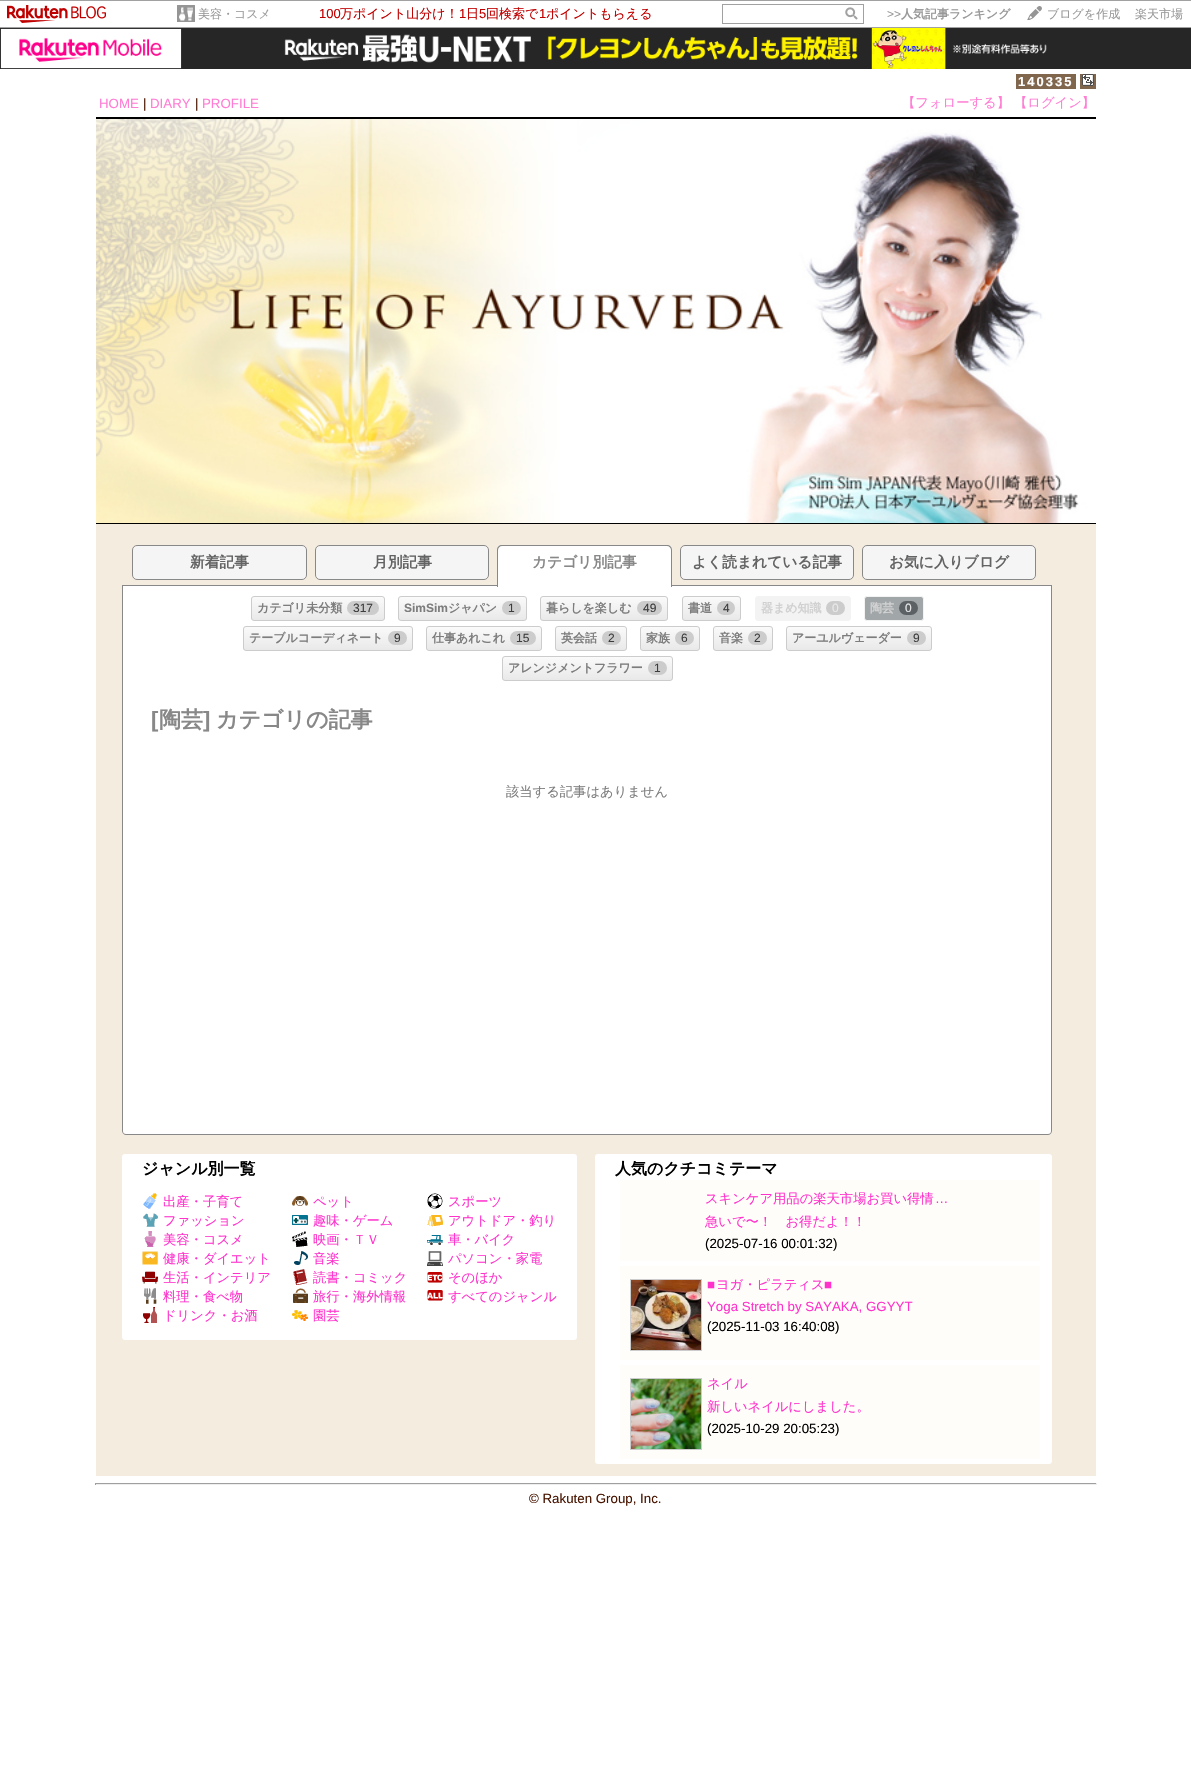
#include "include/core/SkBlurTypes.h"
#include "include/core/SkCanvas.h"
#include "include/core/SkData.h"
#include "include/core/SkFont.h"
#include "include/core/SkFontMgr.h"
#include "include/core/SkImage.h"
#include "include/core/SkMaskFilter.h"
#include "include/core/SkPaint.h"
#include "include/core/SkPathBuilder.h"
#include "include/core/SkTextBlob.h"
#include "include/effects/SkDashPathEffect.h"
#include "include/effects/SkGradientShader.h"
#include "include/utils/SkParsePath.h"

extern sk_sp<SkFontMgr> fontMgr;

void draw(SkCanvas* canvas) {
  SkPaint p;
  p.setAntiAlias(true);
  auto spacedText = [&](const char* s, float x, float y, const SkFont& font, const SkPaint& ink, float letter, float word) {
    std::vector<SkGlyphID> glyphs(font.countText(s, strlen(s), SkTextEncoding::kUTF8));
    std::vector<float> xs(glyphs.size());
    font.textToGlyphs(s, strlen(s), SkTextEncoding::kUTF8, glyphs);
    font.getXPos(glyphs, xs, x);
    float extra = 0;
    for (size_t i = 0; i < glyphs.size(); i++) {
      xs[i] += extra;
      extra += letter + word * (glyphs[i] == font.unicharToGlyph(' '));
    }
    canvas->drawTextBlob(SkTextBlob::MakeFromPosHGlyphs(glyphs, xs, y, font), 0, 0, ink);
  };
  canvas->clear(SK_ColorWHITE);
  p.setColor(SkColorSetRGB(161, 161, 161));
  canvas->drawRect(SkRect::MakeLTRB(0, 0, 1191, 1), p);
  canvas->drawRect(SkRect::MakeLTRB(0, 27, 1191, 28), p);
  canvas->drawImageRect(SkImages::DeferredFromEncodedData(SkData::MakeFromFileName("images/1.png")), SkRect::MakeLTRB(7, 5, 106, 23), SkSamplingOptions());
  canvas->drawImageRect(SkImages::DeferredFromEncodedData(SkData::MakeFromFileName("images/2.png")), SkRect::MakeLTRB(177, 5, 195, 22), SkSamplingOptions());
  p.setStyle(SkPaint::kStroke_Style);
  p.setStrokeWidth(1);
  canvas->drawRect(SkRect::MakeLTRB(722.5f, 4.5f, 863.5f, 23.5f), p);
  canvas->drawImageRect(SkImages::DeferredFromEncodedData(SkData::MakeFromFileName("images/3.png")), SkRect::MakeLTRB(845, 7, 858, 20), SkSamplingOptions());
  canvas->drawImageRect(SkImages::DeferredFromEncodedData(SkData::MakeFromFileName("images/4.png")), SkRect::MakeLTRB(1027, 6, 1042, 20), SkSamplingOptions());
  canvas->drawImageRect(SkImages::DeferredFromEncodedData(SkData::MakeFromFileName("images/5.png")), SkRect::MakeLTRB(0, 28, 1191, 69), SkSamplingOptions());
  p.setStyle(SkPaint::kFill_Style);
  p.setColor(SkColorSetRGB(129, 102, 78));
  canvas->drawRect(SkRect::MakeLTRB(1080, 74, 1096, 89), p);
  canvas->drawRect(SkRect::MakeLTRB(1016, 74, 1076, 89), p);
  canvas->drawImageRect(SkImages::DeferredFromEncodedData(SkData::MakeFromFileName("images/6.png")), SkRect::MakeLTRB(1082, 74, 1094, 86), SkSamplingOptions());
  p.setColor(SK_ColorBLACK);
  canvas->drawRect(SkRect::MakeLTRB(96, 117, 1096, 524), p);
  canvas->drawImageRect(SkImages::DeferredFromEncodedData(SkData::MakeFromFileName("images/7.png")), SkRect::MakeLTRB(96, 119, 1096, 523), SkSamplingOptions());
  p.setColor(SkColorSetRGB(245, 236, 224));
  canvas->drawRect(SkRect::MakeLTRB(96, 524, 1096, 1476), p);
  p.setColor(SkColorSetRGB(136, 136, 136));
  canvas->drawRect(SkRect::MakeLTRB(122, 585, 1052, 586), p);
  p.setColor(SkColorSetRGB(245, 245, 245));
  canvas->drawRoundRect(SkRect::MakeLTRB(132.5f, 545.5f, 306.5f, 579.5f), 4.5f, 4.5f, p);
  p.setStyle(SkPaint::kStroke_Style);
  p.setColor(SkColorSetRGB(136, 136, 136));
  canvas->drawRoundRect(SkRect::MakeLTRB(132.5f, 545.5f, 306.5f, 579.5f), 4.5f, 4.5f, p);
  p.setStyle(SkPaint::kFill_Style);
  p.setColor(SkColorSetRGB(245, 245, 245));
  canvas->drawRoundRect(SkRect::MakeLTRB(315.5f, 545.5f, 488.5f, 579.5f), 4.5f, 4.5f, p);
  p.setStyle(SkPaint::kStroke_Style);
  p.setColor(SkColorSetRGB(136, 136, 136));
  canvas->drawRoundRect(SkRect::MakeLTRB(315.5f, 545.5f, 488.5f, 579.5f), 4.5f, 4.5f, p);
  p.setStyle(SkPaint::kFill_Style);
  p.setColor(SK_ColorWHITE);
  canvas->drawPath(SkPathBuilder().moveTo(122, 586).lineTo(1052, 586).lineTo(1052, 1131).cubicTo(1052, 1133, 1050, 1135, 1048, 1135).lineTo(126, 1135).cubicTo(124, 1135, 122, 1133, 122, 1131).close().detach(), p);
  p.setColor(SkColorSetRGB(136, 136, 136));
  canvas->drawPath(SkPathBuilder(SkPathFillType::kEvenOdd).moveTo(122, 586).lineTo(1052, 586).lineTo(1052, 1131).cubicTo(1052, 1133, 1050, 1135, 1048, 1135).lineTo(126, 1135).cubicTo(124, 1135, 122, 1133, 122, 1131).close().moveTo(123, 586).lineTo(1051, 586).lineTo(1051, 1131).cubicTo(1051, 1133, 1050, 1134, 1048, 1134).lineTo(126, 1134).cubicTo(124, 1134, 123, 1133, 123, 1131).close().detach(), p);
  p.setColor(SK_ColorWHITE);
  canvas->drawPath(SkPathBuilder().moveTo(502, 545).lineTo(667, 545).cubicTo(670, 545, 672, 547, 672, 550).lineTo(672, 587).lineTo(497, 587).lineTo(497, 550).cubicTo(497, 547, 499, 545, 502, 545).close().detach(), p);
  p.setColor(SkColorSetRGB(136, 136, 136));
  canvas->drawPath(SkPathBuilder(SkPathFillType::kEvenOdd).moveTo(502, 545).lineTo(667, 545).cubicTo(670, 545, 672, 547, 672, 550).lineTo(672, 587).lineTo(497, 587).lineTo(497, 550).cubicTo(497, 547, 499, 545, 502, 545).close().moveTo(502, 546).lineTo(667, 546).cubicTo(669, 546, 671, 548, 671, 550).lineTo(671, 587).lineTo(498, 587).lineTo(498, 550).cubicTo(498, 548, 500, 546, 502, 546).close().detach(), p);
  p.setColor(SkColorSetRGB(245, 245, 245));
  canvas->drawRoundRect(SkRect::MakeLTRB(680.5f, 545.5f, 853.5f, 579.5f), 4.5f, 4.5f, p);
  p.setStyle(SkPaint::kStroke_Style);
  p.setColor(SkColorSetRGB(136, 136, 136));
  canvas->drawRoundRect(SkRect::MakeLTRB(680.5f, 545.5f, 853.5f, 579.5f), 4.5f, 4.5f, p);
  p.setStyle(SkPaint::kFill_Style);
  p.setColor(SkColorSetRGB(245, 245, 245));
  canvas->drawRoundRect(SkRect::MakeLTRB(862.5f, 545.5f, 1035.5f, 579.5f), 4.5f, 4.5f, p);
  p.setStyle(SkPaint::kStroke_Style);
  p.setColor(SkColorSetRGB(136, 136, 136));
  canvas->drawRoundRect(SkRect::MakeLTRB(862.5f, 545.5f, 1035.5f, 579.5f), 4.5f, 4.5f, p);
  canvas->save();
  canvas->clipPath(SkPathBuilder().moveTo(254, 596).lineTo(382, 596).cubicTo(383.5f, 596, 385, 597.5f, 385, 599).lineTo(385, 618).cubicTo(385, 619.5f, 383.5f, 621, 382, 621).lineTo(254, 621).cubicTo(252.5f, 621, 251, 619.5f, 251, 618).lineTo(251, 599).cubicTo(251, 597.5f, 252.5f, 596, 254, 596).close().detach(), true);
  p.setStyle(SkPaint::kFill_Style);
  {
    const SkColor colors[] = {SkColorSetRGB(250, 250, 250), SkColorSetRGB(233, 233, 233)};
    const float stops[] = {0, 1};
    const SkPoint ends[] = {{318, 597}, {318, 620}};
    p.setShader(SkGradientShader::MakeLinear(ends, colors, stops, 2, SkTileMode::kClamp));
    p.setAlpha(255);
  }
  canvas->drawRect(SkRect::MakeLTRB(251, 597, 385, 620), p);
  canvas->restore();
  p.setStyle(SkPaint::kStroke_Style);
  p.setShader(nullptr);
  p.setColor(SkColorSetRGB(204, 204, 204));
  canvas->drawRoundRect(SkRect::MakeLTRB(251.5f, 596.5f, 384.5f, 620.5f), 2.5f, 2.5f, p);
  p.setStyle(SkPaint::kFill_Style);
  canvas->drawRoundRect(SkRect::MakeLTRB(347, 601, 379, 615), 7, 7, p);
  canvas->save();
  canvas->clipPath(SkPathBuilder().moveTo(401, 596).lineTo(524, 596).cubicTo(525.5f, 596, 527, 597.5f, 527, 599).lineTo(527, 618).cubicTo(527, 619.5f, 525.5f, 621, 524, 621).lineTo(401, 621).cubicTo(399.5f, 621, 398, 619.5f, 398, 618).lineTo(398, 599).cubicTo(398, 597.5f, 399.5f, 596, 401, 596).close().detach(), true);
  {
    const SkColor colors[] = {SkColorSetRGB(250, 250, 250), SkColorSetRGB(233, 233, 233)};
    const float stops[] = {0, 1};
    const SkPoint ends[] = {{463, 597}, {463, 620}};
    p.setShader(SkGradientShader::MakeLinear(ends, colors, stops, 2, SkTileMode::kClamp));
    p.setAlpha(255);
  }
  canvas->drawRect(SkRect::MakeLTRB(398, 597, 527, 620), p);
  canvas->restore();
  p.setStyle(SkPaint::kStroke_Style);
  p.setShader(nullptr);
  p.setColor(SkColorSetRGB(204, 204, 204));
  canvas->drawRoundRect(SkRect::MakeLTRB(398.5f, 596.5f, 526.5f, 620.5f), 2.5f, 2.5f, p);
  p.setStyle(SkPaint::kFill_Style);
  canvas->drawRoundRect(SkRect::MakeLTRB(502, 601, 521, 615), 7, 7, p);
  canvas->save();
  canvas->clipPath(SkPathBuilder().moveTo(543, 596).lineTo(665, 596).cubicTo(666.5f, 596, 668, 597.5f, 668, 599).lineTo(668, 618).cubicTo(668, 619.5f, 666.5f, 621, 665, 621).lineTo(543, 621).cubicTo(541.5f, 621, 540, 619.5f, 540, 618).lineTo(540, 599).cubicTo(540, 597.5f, 541.5f, 596, 543, 596).close().detach(), true);
  {
    const SkColor colors[] = {SkColorSetRGB(250, 250, 250), SkColorSetRGB(233, 233, 233)};
    const float stops[] = {0, 1};
    const SkPoint ends[] = {{604, 597}, {604, 620}};
    p.setShader(SkGradientShader::MakeLinear(ends, colors, stops, 2, SkTileMode::kClamp));
    p.setAlpha(255);
  }
  canvas->drawRect(SkRect::MakeLTRB(540, 597, 668, 620), p);
  canvas->restore();
  p.setStyle(SkPaint::kStroke_Style);
  p.setShader(nullptr);
  p.setColor(SkColorSetRGB(204, 204, 204));
  canvas->drawRoundRect(SkRect::MakeLTRB(540.5f, 596.5f, 667.5f, 620.5f), 2.5f, 2.5f, p);
  p.setStyle(SkPaint::kFill_Style);
  canvas->drawRoundRect(SkRect::MakeLTRB(637, 601, 662, 615), 7, 7, p);
  canvas->save();
  canvas->clipPath(SkPathBuilder().moveTo(685, 596).lineTo(738, 596).cubicTo(739.5f, 596, 741, 597.5f, 741, 599).lineTo(741, 618).cubicTo(741, 619.5f, 739.5f, 621, 738, 621).lineTo(685, 621).cubicTo(683.5f, 621, 682, 619.5f, 682, 618).lineTo(682, 599).cubicTo(682, 597.5f, 683.5f, 596, 685, 596).close().detach(), true);
  {
    const SkColor colors[] = {SkColorSetRGB(250, 250, 250), SkColorSetRGB(233, 233, 233)};
    const float stops[] = {0, 1};
    const SkPoint ends[] = {{712, 597}, {712, 620}};
    p.setShader(SkGradientShader::MakeLinear(ends, colors, stops, 2, SkTileMode::kClamp));
    p.setAlpha(255);
  }
  canvas->drawRect(SkRect::MakeLTRB(682, 597, 741, 620), p);
  canvas->restore();
  p.setStyle(SkPaint::kStroke_Style);
  p.setShader(nullptr);
  p.setColor(SkColorSetRGB(204, 204, 204));
  canvas->drawRoundRect(SkRect::MakeLTRB(682.5f, 596.5f, 740.5f, 620.5f), 2.5f, 2.5f, p);
  p.setStyle(SkPaint::kFill_Style);
  canvas->drawRoundRect(SkRect::MakeLTRB(717, 601, 735, 615), 7, 7, p);
  p.setColor(SkColorSetRGB(243, 243, 243));
  canvas->drawRoundRect(SkRect::MakeLTRB(755.5f, 596.5f, 850.5f, 620.5f), 2.5f, 2.5f, p);
  p.setStyle(SkPaint::kStroke_Style);
  canvas->drawRoundRect(SkRect::MakeLTRB(755.5f, 596.5f, 850.5f, 620.5f), 2.5f, 2.5f, p);
  p.setStyle(SkPaint::kFill_Style);
  p.setColor(SkColorSetRGB(204, 204, 204));
  canvas->drawRoundRect(SkRect::MakeLTRB(826, 601, 845, 615), 7, 7, p);
  p.setColor(SkColorSetRGB(161, 166, 169));
  canvas->drawRoundRect(SkRect::MakeLTRB(864.5f, 596.5f, 923.5f, 620.5f), 2.5f, 2.5f, p);
  p.setStyle(SkPaint::kStroke_Style);
  p.setColor(SkColorSetRGB(243, 243, 243));
  canvas->drawRoundRect(SkRect::MakeLTRB(864.5f, 596.5f, 923.5f, 620.5f), 2.5f, 2.5f, p);
  p.setStyle(SkPaint::kFill_Style);
  p.setColor(SkColorSetRGB(92, 97, 102));
  canvas->drawRoundRect(SkRect::MakeLTRB(899, 601, 918, 615), 7, 7, p);
  canvas->save();
  canvas->clipPath(SkPathBuilder().moveTo(246, 626).lineTo(410, 626).cubicTo(411.5f, 626, 413, 627.5f, 413, 629).lineTo(413, 648).cubicTo(413, 649.5f, 411.5f, 651, 410, 651).lineTo(246, 651).cubicTo(244.5f, 651, 243, 649.5f, 243, 648).lineTo(243, 629).cubicTo(243, 627.5f, 244.5f, 626, 246, 626).close().detach(), true);
  {
    const SkColor colors[] = {SkColorSetRGB(250, 250, 250), SkColorSetRGB(233, 233, 233)};
    const float stops[] = {0, 1};
    const SkPoint ends[] = {{328, 627}, {328, 650}};
    p.setShader(SkGradientShader::MakeLinear(ends, colors, stops, 2, SkTileMode::kClamp));
    p.setAlpha(255);
  }
  canvas->drawRect(SkRect::MakeLTRB(243, 627, 413, 650), p);
  canvas->restore();
  p.setStyle(SkPaint::kStroke_Style);
  p.setShader(nullptr);
  p.setColor(SkColorSetRGB(204, 204, 204));
  canvas->drawRoundRect(SkRect::MakeLTRB(243.5f, 626.5f, 412.5f, 650.5f), 2.5f, 2.5f, p);
  p.setStyle(SkPaint::kFill_Style);
  canvas->drawRoundRect(SkRect::MakeLTRB(388, 631, 407, 645), 7, 7, p);
  canvas->save();
  canvas->clipPath(SkPathBuilder().moveTo(429, 626).lineTo(539, 626).cubicTo(540.5f, 626, 542, 627.5f, 542, 629).lineTo(542, 648).cubicTo(542, 649.5f, 540.5f, 651, 539, 651).lineTo(429, 651).cubicTo(427.5f, 651, 426, 649.5f, 426, 648).lineTo(426, 629).cubicTo(426, 627.5f, 427.5f, 626, 429, 626).close().detach(), true);
  {
    const SkColor colors[] = {SkColorSetRGB(250, 250, 250), SkColorSetRGB(233, 233, 233)};
    const float stops[] = {0, 1};
    const SkPoint ends[] = {{484, 627}, {484, 650}};
    p.setShader(SkGradientShader::MakeLinear(ends, colors, stops, 2, SkTileMode::kClamp));
    p.setAlpha(255);
  }
  canvas->drawRect(SkRect::MakeLTRB(426, 627, 542, 650), p);
  canvas->restore();
  p.setStyle(SkPaint::kStroke_Style);
  p.setShader(nullptr);
  p.setColor(SkColorSetRGB(204, 204, 204));
  canvas->drawRoundRect(SkRect::MakeLTRB(426.5f, 626.5f, 541.5f, 650.5f), 2.5f, 2.5f, p);
  p.setStyle(SkPaint::kFill_Style);
  canvas->drawRoundRect(SkRect::MakeLTRB(510, 631, 536, 645), 7, 7, p);
  canvas->save();
  canvas->clipPath(SkPathBuilder().moveTo(558, 626).lineTo(624, 626).cubicTo(625.5f, 626, 627, 627.5f, 627, 629).lineTo(627, 648).cubicTo(627, 649.5f, 625.5f, 651, 624, 651).lineTo(558, 651).cubicTo(556.5f, 651, 555, 649.5f, 555, 648).lineTo(555, 629).cubicTo(555, 627.5f, 556.5f, 626, 558, 626).close().detach(), true);
  {
    const SkColor colors[] = {SkColorSetRGB(250, 250, 250), SkColorSetRGB(233, 233, 233)};
    const float stops[] = {0, 1};
    const SkPoint ends[] = {{591, 627}, {591, 650}};
    p.setShader(SkGradientShader::MakeLinear(ends, colors, stops, 2, SkTileMode::kClamp));
    p.setAlpha(255);
  }
  canvas->drawRect(SkRect::MakeLTRB(555, 627, 627, 650), p);
  canvas->restore();
  p.setStyle(SkPaint::kStroke_Style);
  p.setShader(nullptr);
  p.setColor(SkColorSetRGB(204, 204, 204));
  canvas->drawRoundRect(SkRect::MakeLTRB(555.5f, 626.5f, 626.5f, 650.5f), 2.5f, 2.5f, p);
  p.setStyle(SkPaint::kFill_Style);
  canvas->drawRoundRect(SkRect::MakeLTRB(602, 631, 621, 645), 7, 7, p);
  canvas->save();
  canvas->clipPath(SkPathBuilder().moveTo(643, 626).lineTo(697, 626).cubicTo(698.5f, 626, 700, 627.5f, 700, 629).lineTo(700, 648).cubicTo(700, 649.5f, 698.5f, 651, 697, 651).lineTo(643, 651).cubicTo(641.5f, 651, 640, 649.5f, 640, 648).lineTo(640, 629).cubicTo(640, 627.5f, 641.5f, 626, 643, 626).close().detach(), true);
  {
    const SkColor colors[] = {SkColorSetRGB(250, 250, 250), SkColorSetRGB(233, 233, 233)};
    const float stops[] = {0, 1};
    const SkPoint ends[] = {{670, 627}, {670, 650}};
    p.setShader(SkGradientShader::MakeLinear(ends, colors, stops, 2, SkTileMode::kClamp));
    p.setAlpha(255);
  }
  canvas->drawRect(SkRect::MakeLTRB(640, 627, 700, 650), p);
  canvas->restore();
  p.setStyle(SkPaint::kStroke_Style);
  p.setShader(nullptr);
  p.setColor(SkColorSetRGB(204, 204, 204));
  canvas->drawRoundRect(SkRect::MakeLTRB(640.5f, 626.5f, 699.5f, 650.5f), 2.5f, 2.5f, p);
  p.setStyle(SkPaint::kFill_Style);
  canvas->drawRoundRect(SkRect::MakeLTRB(675, 631, 694, 645), 7, 7, p);
  canvas->save();
  canvas->clipPath(SkPathBuilder().moveTo(716, 626).lineTo(770, 626).cubicTo(771.5f, 626, 773, 627.5f, 773, 629).lineTo(773, 648).cubicTo(773, 649.5f, 771.5f, 651, 770, 651).lineTo(716, 651).cubicTo(714.5f, 651, 713, 649.5f, 713, 648).lineTo(713, 629).cubicTo(713, 627.5f, 714.5f, 626, 716, 626).close().detach(), true);
  {
    const SkColor colors[] = {SkColorSetRGB(250, 250, 250), SkColorSetRGB(233, 233, 233)};
    const float stops[] = {0, 1};
    const SkPoint ends[] = {{743, 627}, {743, 650}};
    p.setShader(SkGradientShader::MakeLinear(ends, colors, stops, 2, SkTileMode::kClamp));
    p.setAlpha(255);
  }
  canvas->drawRect(SkRect::MakeLTRB(713, 627, 773, 650), p);
  canvas->restore();
  p.setStyle(SkPaint::kStroke_Style);
  p.setShader(nullptr);
  p.setColor(SkColorSetRGB(204, 204, 204));
  canvas->drawRoundRect(SkRect::MakeLTRB(713.5f, 626.5f, 772.5f, 650.5f), 2.5f, 2.5f, p);
  p.setStyle(SkPaint::kFill_Style);
  canvas->drawRoundRect(SkRect::MakeLTRB(748, 631, 767, 645), 7, 7, p);
  canvas->save();
  canvas->clipPath(SkPathBuilder().moveTo(789, 626).lineTo(929, 626).cubicTo(930.5f, 626, 932, 627.5f, 932, 629).lineTo(932, 648).cubicTo(932, 649.5f, 930.5f, 651, 929, 651).lineTo(789, 651).cubicTo(787.5f, 651, 786, 649.5f, 786, 648).lineTo(786, 629).cubicTo(786, 627.5f, 787.5f, 626, 789, 626).close().detach(), true);
  {
    const SkColor colors[] = {SkColorSetRGB(250, 250, 250), SkColorSetRGB(233, 233, 233)};
    const float stops[] = {0, 1};
    const SkPoint ends[] = {{859, 627}, {859, 650}};
    p.setShader(SkGradientShader::MakeLinear(ends, colors, stops, 2, SkTileMode::kClamp));
    p.setAlpha(255);
  }
  canvas->drawRect(SkRect::MakeLTRB(786, 627, 932, 650), p);
  canvas->restore();
  p.setStyle(SkPaint::kStroke_Style);
  p.setShader(nullptr);
  p.setColor(SkColorSetRGB(204, 204, 204));
  canvas->drawRoundRect(SkRect::MakeLTRB(786.5f, 626.5f, 931.5f, 650.5f), 2.5f, 2.5f, p);
  p.setStyle(SkPaint::kFill_Style);
  canvas->drawRoundRect(SkRect::MakeLTRB(907, 631, 926, 645), 7, 7, p);
  canvas->save();
  canvas->clipPath(SkPathBuilder().moveTo(505, 656).lineTo(670, 656).cubicTo(671.5f, 656, 673, 657.5f, 673, 659).lineTo(673, 678).cubicTo(673, 679.5f, 671.5f, 681, 670, 681).lineTo(505, 681).cubicTo(503.5f, 681, 502, 679.5f, 502, 678).lineTo(502, 659).cubicTo(502, 657.5f, 503.5f, 656, 505, 656).close().detach(), true);
  {
    const SkColor colors[] = {SkColorSetRGB(250, 250, 250), SkColorSetRGB(233, 233, 233)};
    const float stops[] = {0, 1};
    const SkPoint ends[] = {{588, 657}, {588, 680}};
    p.setShader(SkGradientShader::MakeLinear(ends, colors, stops, 2, SkTileMode::kClamp));
    p.setAlpha(255);
  }
  canvas->drawRect(SkRect::MakeLTRB(502, 657, 673, 680), p);
  canvas->restore();
  p.setStyle(SkPaint::kStroke_Style);
  p.setShader(nullptr);
  p.setColor(SkColorSetRGB(204, 204, 204));
  canvas->drawRoundRect(SkRect::MakeLTRB(502.5f, 656.5f, 672.5f, 680.5f), 2.5f, 2.5f, p);
  p.setStyle(SkPaint::kFill_Style);
  canvas->drawRoundRect(SkRect::MakeLTRB(648, 661, 667, 675), 7, 7, p);
  p.setColor(SK_ColorWHITE);
  canvas->drawRoundRect(SkRect::MakeLTRB(122, 1154, 577, 1340), 3, 3, p);
  canvas->drawImageRect(SkImages::DeferredFromEncodedData(SkData::MakeFromFileName("images/8.png")), SkRect::MakeLTRB(143, 1193, 157, 1209), SkSamplingOptions());
  canvas->drawImageRect(SkImages::DeferredFromEncodedData(SkData::MakeFromFileName("images/9.png")), SkRect::MakeLTRB(143, 1213, 158, 1227), SkSamplingOptions());
  canvas->drawImageRect(SkImages::DeferredFromEncodedData(SkData::MakeFromFileName("images/10.png")), SkRect::MakeLTRB(144, 1231, 156, 1247), SkSamplingOptions());
  canvas->drawImageRect(SkImages::DeferredFromEncodedData(SkData::MakeFromFileName("images/11.png")), SkRect::MakeLTRB(142, 1251, 158, 1265), SkSamplingOptions());
  canvas->drawImageRect(SkImages::DeferredFromEncodedData(SkData::MakeFromFileName("images/12.png")), SkRect::MakeLTRB(142, 1271, 158, 1284), SkSamplingOptions());
  canvas->drawImageRect(SkImages::DeferredFromEncodedData(SkData::MakeFromFileName("images/13.png")), SkRect::MakeLTRB(144, 1288, 157, 1304), SkSamplingOptions());
  canvas->drawImageRect(SkImages::DeferredFromEncodedData(SkData::MakeFromFileName("images/14.png")), SkRect::MakeLTRB(143, 1307, 157, 1323), SkSamplingOptions());
  canvas->drawImageRect(SkImages::DeferredFromEncodedData(SkData::MakeFromFileName("images/15.png")), SkRect::MakeLTRB(292, 1196, 308, 1206), SkSamplingOptions());
  canvas->drawImageRect(SkImages::DeferredFromEncodedData(SkData::MakeFromFileName("images/16.png")), SkRect::MakeLTRB(292, 1215, 308, 1225), SkSamplingOptions());
  canvas->drawImageRect(SkImages::DeferredFromEncodedData(SkData::MakeFromFileName("images/17.png")), SkRect::MakeLTRB(292, 1231, 308, 1247), SkSamplingOptions());
  canvas->drawImageRect(SkImages::DeferredFromEncodedData(SkData::MakeFromFileName("images/18.png")), SkRect::MakeLTRB(294, 1251, 308, 1265), SkSamplingOptions());
  canvas->drawImageRect(SkImages::DeferredFromEncodedData(SkData::MakeFromFileName("images/19.png")), SkRect::MakeLTRB(293, 1269, 308, 1285), SkSamplingOptions());
  canvas->drawImageRect(SkImages::DeferredFromEncodedData(SkData::MakeFromFileName("images/20.png")), SkRect::MakeLTRB(293, 1288, 308, 1303), SkSamplingOptions());
  canvas->drawImageRect(SkImages::DeferredFromEncodedData(SkData::MakeFromFileName("images/21.png")), SkRect::MakeLTRB(292, 1310, 308, 1321), SkSamplingOptions());
  canvas->drawImageRect(SkImages::DeferredFromEncodedData(SkData::MakeFromFileName("images/22.png")), SkRect::MakeLTRB(427, 1193, 443, 1209), SkSamplingOptions());
  canvas->drawImageRect(SkImages::DeferredFromEncodedData(SkData::MakeFromFileName("images/23.png")), SkRect::MakeLTRB(427, 1215, 443, 1227), SkSamplingOptions());
  canvas->drawImageRect(SkImages::DeferredFromEncodedData(SkData::MakeFromFileName("images/24.png")), SkRect::MakeLTRB(427, 1235, 443, 1245), SkSamplingOptions());
  canvas->drawImageRect(SkImages::DeferredFromEncodedData(SkData::MakeFromFileName("images/25.png")), SkRect::MakeLTRB(427, 1251, 443, 1266), SkSamplingOptions());
  canvas->drawImageRect(SkImages::DeferredFromEncodedData(SkData::MakeFromFileName("images/26.png")), SkRect::MakeLTRB(427, 1272, 443, 1283), SkSamplingOptions());
  canvas->drawImageRect(SkImages::DeferredFromEncodedData(SkData::MakeFromFileName("images/27.png")), SkRect::MakeLTRB(427, 1290, 443, 1301), SkSamplingOptions());
  canvas->drawRoundRect(SkRect::MakeLTRB(595, 1154, 1052, 1464), 3, 3, p);
  p.setColor(SkColorSetRGB(255, 253, 250));
  canvas->drawRect(SkRect::MakeLTRB(620, 1180, 1040, 1261), p);
  canvas->drawRect(SkRect::MakeLTRB(620, 1266, 1040, 1360), p);
  p.setStyle(SkPaint::kStroke_Style);
  p.setColor(SkColorSetRGB(204, 204, 204));
  canvas->drawRect(SkRect::MakeLTRB(630.5f, 1279.5f, 701.5f, 1350.5f), p);
  canvas->drawImageRect(SkImages::DeferredFromEncodedData(SkData::MakeFromFileName("images/28.png")), SkRect::MakeLTRB(631, 1280, 701, 1350), SkSamplingOptions());
  p.setStyle(SkPaint::kFill_Style);
  p.setColor(SkColorSetRGB(255, 253, 250));
  canvas->drawRect(SkRect::MakeLTRB(620, 1365, 1040, 1459), p);
  p.setStyle(SkPaint::kStroke_Style);
  p.setColor(SkColorSetRGB(204, 204, 204));
  canvas->drawRect(SkRect::MakeLTRB(630.5f, 1378.5f, 701.5f, 1449.5f), p);
  canvas->drawImageRect(SkImages::DeferredFromEncodedData(SkData::MakeFromFileName("images/29.png")), SkRect::MakeLTRB(631, 1379, 701, 1449), SkSamplingOptions());
  p.setStyle(SkPaint::kFill_Style);
  p.setColor(SkColorSetRGB(159, 159, 159));
  canvas->drawRect(SkRect::MakeLTRB(95, 1483, 1097, 1484), p);
  p.setColor(SkColorSetRGB(238, 238, 238));
  canvas->drawRect(SkRect::MakeLTRB(1096, 1483, 1097, 1485), p);
  canvas->drawRect(SkRect::MakeLTRB(95, 1484, 1097, 1485), p);
  p.setColor(SkColorSetRGB(159, 159, 159));
  canvas->drawRect(SkRect::MakeLTRB(95, 1483, 96, 1485), p);
  SkFont font1(fontMgr->matchFamilyStyle("WenQuanYi Zen Hei", SkFontStyle(500, SkFontStyle::kNormal_Width, SkFontStyle::kUpright_Slant)), 12);
  font1.setSubpixel(true);
  p.setColor(SkColorSetRGB(153, 153, 153));
  canvas->drawString("美容・コスメ", 198, 18, font1, p);
  SkFont font2(fontMgr->matchFamilyStyle("Liberation Sans", SkFontStyle::Normal()), 13);
  font2.setSubpixel(true);
  p.setColor(SkColorSetRGB(191, 0, 0));
  canvas->drawString("100", 319, 18, font2, p);
  SkFont font3(fontMgr->matchFamilyStyle("WenQuanYi Zen Hei", SkFontStyle(500, SkFontStyle::kNormal_Width, SkFontStyle::kUpright_Slant)), 13);
  font3.setSubpixel(true);
  canvas->drawString("万ポイント山分け！", 340, 18, font3, p);
  canvas->drawString("1", 459, 18, font2, p);
  canvas->drawString("日", 466, 18, font3, p);
  canvas->drawString("5", 479, 18, font2, p);
  canvas->drawString("回検索で", 486, 18, font3, p);
  canvas->drawString("1", 539, 18, font2, p);
  canvas->drawString("ポイントもらえる", 546, 18, font3, p);
  SkFont font4(fontMgr->matchFamilyStyle("Liberation Sans", SkFontStyle::Normal()), 12);
  font4.setSubpixel(true);
  p.setColor(SkColorSetRGB(153, 153, 153));
  canvas->drawString(">>", 887, 18, font4, p);
  SkFont font5(fontMgr->matchFamilyStyle("WenQuanYi Zen Hei", SkFontStyle::Bold()), 12);
  font5.setSubpixel(true);
  canvas->drawString("人気記事ランキング", 901, 18, font5, p);
  canvas->drawString("ブログを作成", 1047, 18, font1, p);
  canvas->drawString("楽天市場", 1135, 18, font1, p);
  SkFont font6(fontMgr->matchFamilyStyle("Liberation Sans", SkFontStyle::Bold()), 13);
  font6.setSubpixel(true);
  p.setColor(SK_ColorWHITE);
  spacedText("140335", 1018, 86, font6, p, 2, 0);
  SkFont font7(fontMgr->matchFamilyStyle("Liberation Sans", SkFontStyle::Normal()), 13.3f);
  font7.setSubpixel(true);
  p.setColor(SkColorSetRGB(255, 126, 212));
  canvas->drawString("HOME", 99, 108, font7, p);
  p.setColor(SkColorSetRGB(71, 20, 0));
  canvas->drawString("|", 143, 108, font7, p);
  p.setColor(SkColorSetRGB(255, 126, 212));
  canvas->drawString("DIARY", 150, 108, font7, p);
  p.setColor(SkColorSetRGB(71, 20, 0));
  canvas->drawString("|", 195, 108, font7, p);
  p.setColor(SkColorSetRGB(255, 126, 212));
  canvas->drawString("PROFILE", 202, 108, font7, p);
  SkFont font8(fontMgr->matchFamilyStyle("WenQuanYi Zen Hei", SkFontStyle(500, SkFontStyle::kNormal_Width, SkFontStyle::kUpright_Slant)), 13.3f);
  font8.setSubpixel(true);
  canvas->drawString("【フォローする】", 902, 107, font8, p);
  canvas->drawString("【ログイン】", 1014, 107, font8, p);
  SkFont font9(fontMgr->matchFamilyStyle("WenQuanYi Zen Hei", SkFontStyle::Bold()), 14.75f);
  font9.setSubpixel(true);
  p.setColor(SkColorSetRGB(99, 99, 99));
  canvas->drawString("新着記事", 190, 567, font9, p);
  canvas->drawString("月別記事", 373, 567, font9, p);
  p.setColor(SkColorSetRGB(136, 136, 136));
  canvas->drawString("カテゴリ別記事", 532, 567, font9, p);
  p.setColor(SkColorSetRGB(99, 99, 99));
  canvas->drawString("よく読まれている記事", 692, 567, font9, p);
  canvas->drawString("お気に入りブログ", 889, 567, font9, p);
  p.setColor(SkColorSetRGB(125, 125, 125));
  canvas->drawString("カテゴリ未分類", 257, 612, font5, p);
  p.setColor(SkColorSetRGB(60, 60, 60));
  canvas->drawString("317", 353, 612, font4, p);
  SkFont font10(fontMgr->matchFamilyStyle("Liberation Sans", SkFontStyle::Bold()), 12);
  font10.setSubpixel(true);
  p.setColor(SkColorSetRGB(125, 125, 125));
  canvas->drawString("SimSim", 404, 612, font10, p);
  canvas->drawString("ジャパン", 448, 612, font5, p);
  p.setColor(SkColorSetRGB(60, 60, 60));
  canvas->drawString("1", 508, 612, font4, p);
  p.setColor(SkColorSetRGB(125, 125, 125));
  canvas->drawString("暮らしを楽しむ", 546, 612, font5, p);
  p.setColor(SkColorSetRGB(60, 60, 60));
  canvas->drawString("49", 643, 612, font4, p);
  p.setColor(SkColorSetRGB(125, 125, 125));
  canvas->drawString("書道", 688, 612, font5, p);
  p.setColor(SkColorSetRGB(60, 60, 60));
  canvas->drawString("4", 723, 612, font4, p);
  p.setColor(SkColorSetRGB(209, 209, 209));
  canvas->drawString("器まめ知識", 761, 612, font5, p);
  p.setColor(SkColorSetRGB(233, 233, 233));
  canvas->drawString("0", 832, 612, font4, p);
  p.setColor(SkColorSetRGB(209, 209, 209));
  canvas->drawString("陶芸", 870, 612, font5, p);
  p.setColor(SkColorSetRGB(233, 233, 233));
  canvas->drawString("0", 905, 612, font4, p);
  p.setColor(SkColorSetRGB(125, 125, 125));
  canvas->drawString("テーブルコーディネート", 249, 642, font5, p);
  p.setColor(SkColorSetRGB(60, 60, 60));
  canvas->drawString("9", 394, 642, font4, p);
  p.setColor(SkColorSetRGB(125, 125, 125));
  canvas->drawString("仕事あれこれ", 432, 642, font5, p);
  p.setColor(SkColorSetRGB(60, 60, 60));
  canvas->drawString("15", 516, 642, font4, p);
  p.setColor(SkColorSetRGB(125, 125, 125));
  canvas->drawString("英会話", 561, 642, font5, p);
  p.setColor(SkColorSetRGB(60, 60, 60));
  canvas->drawString("2", 608, 642, font4, p);
  p.setColor(SkColorSetRGB(125, 125, 125));
  canvas->drawString("家族", 646, 642, font5, p);
  p.setColor(SkColorSetRGB(60, 60, 60));
  canvas->drawString("6", 681, 642, font4, p);
  p.setColor(SkColorSetRGB(125, 125, 125));
  canvas->drawString("音楽", 719, 642, font5, p);
  p.setColor(SkColorSetRGB(60, 60, 60));
  canvas->drawString("2", 754, 642, font4, p);
  p.setColor(SkColorSetRGB(125, 125, 125));
  canvas->drawString("アーユルヴェーダー", 792, 642, font5, p);
  p.setColor(SkColorSetRGB(60, 60, 60));
  canvas->drawString("9", 913, 642, font4, p);
  p.setColor(SkColorSetRGB(125, 125, 125));
  canvas->drawString("アレンジメントフラワー", 508, 672, font5, p);
  p.setColor(SkColorSetRGB(60, 60, 60));
  canvas->drawString("1", 654, 672, font4, p);
  SkFont font11(fontMgr->matchFamilyStyle("Liberation Sans", SkFontStyle::Bold()), 22);
  font11.setSubpixel(true);
  p.setColor(SkColorSetRGB(136, 136, 136));
  canvas->drawString("[", 151, 727, font11, p);
  SkFont font12(fontMgr->matchFamilyStyle("WenQuanYi Zen Hei", SkFontStyle::Bold()), 22);
  font12.setSubpixel(true);
  canvas->drawString("陶芸", 159, 727, font12, p);
  canvas->drawString("]", 203, 727, font11, p);
  canvas->drawString("カテゴリの記事", 216, 727, font12, p);
  p.setColor(SkColorSetRGB(125, 125, 125));
  canvas->drawString("該当する記事はありません", 506, 796, font8, p);
  SkFont font13(fontMgr->matchFamilyStyle("WenQuanYi Zen Hei", SkFontStyle::Bold()), 16);
  font13.setSubpixel(true);
  p.setColor(SK_ColorBLACK);
  canvas->drawString("ジャンル別一覧", 142, 1174, font13, p);
  p.setColor(SkColorSetRGB(255, 51, 204));
  canvas->drawString("出産・子育て", 163, 1206, font8, p);
  canvas->drawString("ファッション", 163, 1225, font8, p);
  canvas->drawString("美容・コスメ", 163, 1244, font8, p);
  canvas->drawString("健康・ダイエット", 163, 1263, font8, p);
  canvas->drawString("生活・インテリア", 163, 1282, font8, p);
  canvas->drawString("料理・食べ物", 163, 1301, font8, p);
  canvas->drawString("ドリンク・お酒", 163, 1320, font8, p);
  canvas->drawString("ペット", 313, 1206, font8, p);
  canvas->drawString("趣味・ゲーム", 313, 1225, font8, p);
  canvas->drawString("映画・ＴＶ", 313, 1244, font8, p);
  canvas->drawString("音楽", 313, 1263, font8, p);
  canvas->drawString("読書・コミック", 313, 1282, font8, p);
  canvas->drawString("旅行・海外情報", 313, 1301, font8, p);
  canvas->drawString("園芸", 313, 1320, font8, p);
  canvas->drawString("スポーツ", 448, 1206, font8, p);
  canvas->drawString("アウトドア・釣り", 448, 1225, font8, p);
  canvas->drawString("車・バイク", 448, 1244, font8, p);
  canvas->drawString("パソコン・家電", 448, 1263, font8, p);
  canvas->drawString("そのほか", 448, 1282, font8, p);
  canvas->drawString("すべてのジャンル", 448, 1301, font8, p);
  p.setColor(SK_ColorBLACK);
  canvas->drawString("人気のクチコミテーマ", 615, 1174, font13, p);
  p.setColor(SkColorSetRGB(255, 51, 204));
  canvas->drawString("スキンケア用品の楽天市場お買い得情", 705, 1203, font8, p);
  canvas->drawString("…", 935, 1203, font7, p);
  canvas->drawString("急いで〜！　お得だよ！！", 705, 1226, font8, p);
  p.setColor(SK_ColorBLACK);
  canvas->drawString("(2025-07-16 00:01:32)", 705, 1248, font7, p);
  p.setColor(SkColorSetRGB(255, 51, 204));
  canvas->drawString("■", 707, 1289, font7, p);
  canvas->drawString("ヨガ・ピラティス", 716, 1289, font8, p);
  canvas->drawString("■", 824, 1289, font7, p);
  canvas->drawString("Yoga Stretch by SAYAKA, GGYYT", 707, 1311, font7, p);
  p.setColor(SK_ColorBLACK);
  canvas->drawString("(2025-11-03 16:40:08)", 707, 1331, font7, p);
  p.setColor(SkColorSetRGB(255, 51, 204));
  canvas->drawString("ネイル", 707, 1388, font8, p);
  canvas->drawString("新しいネイルにしました。", 707, 1411, font8, p);
  p.setColor(SK_ColorBLACK);
  canvas->drawString("(2025-10-29 20:05:23)", 707, 1433, font7, p);
  p.setColor(SkColorSetRGB(71, 20, 0));
  canvas->drawString("© Rakuten Group, Inc.", 529, 1503, font7, p);
}
